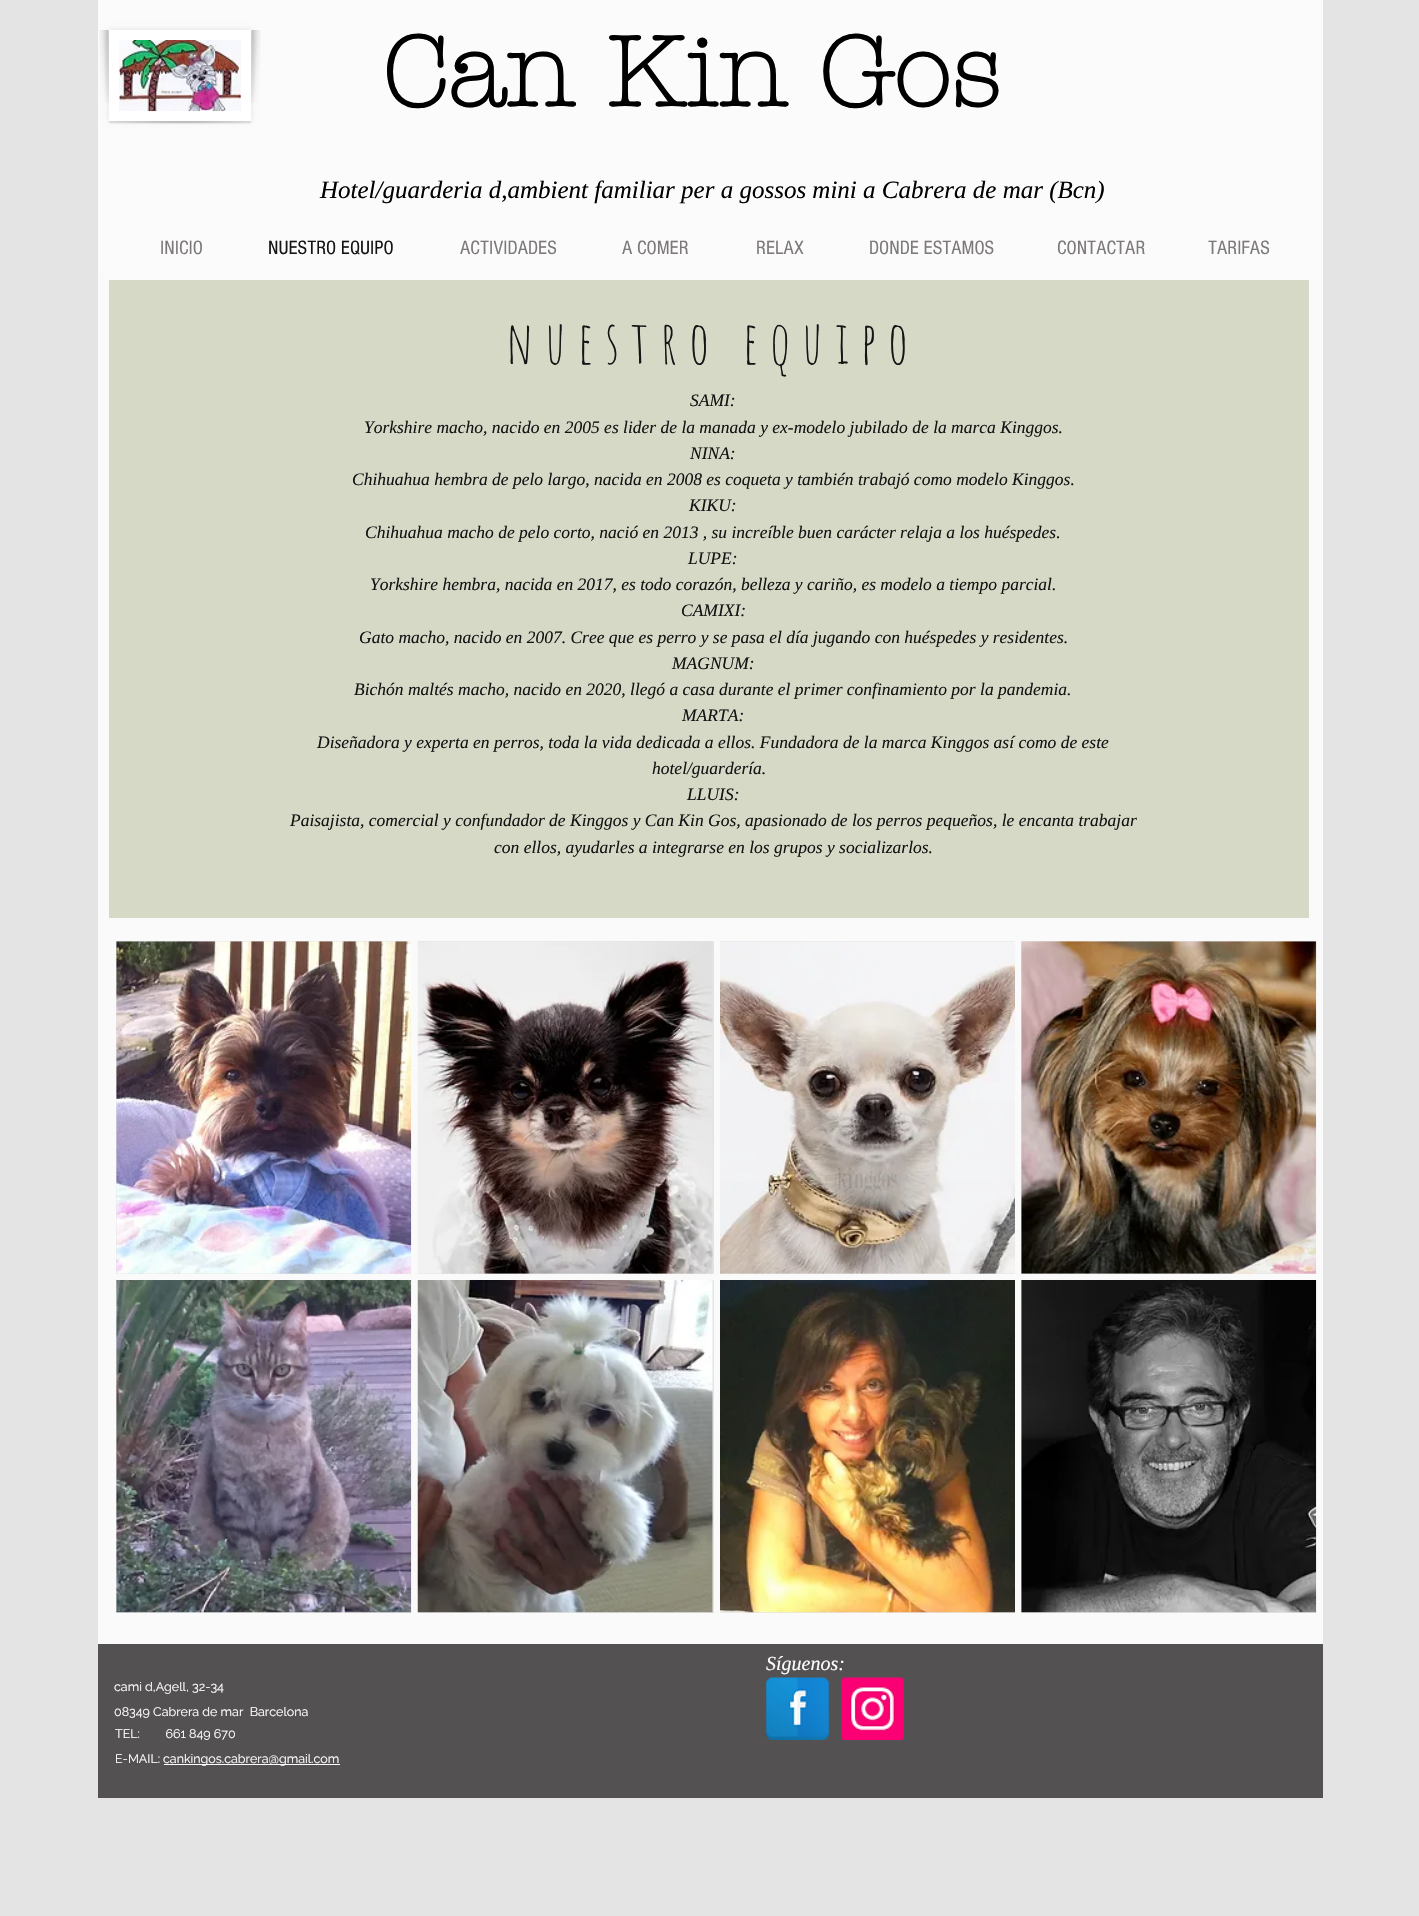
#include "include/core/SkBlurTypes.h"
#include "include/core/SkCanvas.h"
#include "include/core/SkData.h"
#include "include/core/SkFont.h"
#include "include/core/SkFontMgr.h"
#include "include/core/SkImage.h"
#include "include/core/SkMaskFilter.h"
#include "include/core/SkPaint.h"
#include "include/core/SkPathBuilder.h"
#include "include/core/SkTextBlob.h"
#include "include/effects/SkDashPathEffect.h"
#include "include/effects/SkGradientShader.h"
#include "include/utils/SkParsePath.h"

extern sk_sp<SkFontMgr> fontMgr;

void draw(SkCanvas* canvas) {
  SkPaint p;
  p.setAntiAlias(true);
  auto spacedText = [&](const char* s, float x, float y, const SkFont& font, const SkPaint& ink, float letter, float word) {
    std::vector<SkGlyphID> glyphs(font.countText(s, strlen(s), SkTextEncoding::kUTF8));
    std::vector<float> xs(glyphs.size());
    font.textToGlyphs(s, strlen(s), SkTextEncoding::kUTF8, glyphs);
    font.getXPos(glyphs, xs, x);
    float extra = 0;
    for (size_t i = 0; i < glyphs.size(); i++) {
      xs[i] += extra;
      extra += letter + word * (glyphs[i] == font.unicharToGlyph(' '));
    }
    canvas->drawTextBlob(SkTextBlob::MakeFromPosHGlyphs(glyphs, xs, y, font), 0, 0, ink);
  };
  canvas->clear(SkColorSetRGB(228, 228, 228));
  p.setColor(SkColorSetRGB(251, 251, 251));
  canvas->drawRect(SkRect::MakeLTRB(98, 0, 1323, 274), p);
  p.setColor(SkColorSetARGB(26, 0, 0, 0));
  p.setMaskFilter(SkMaskFilter::MakeBlur(kNormal_SkBlurStyle, 3));
  canvas->drawRect(SkRect::MakeLTRB(109, 30, 251, 121), p);
  p.setMaskFilter(nullptr);
  p.setColor(SK_ColorWHITE);
  canvas->drawRect(SkRect::MakeLTRB(109, 30, 251, 121), p);
  canvas->drawImageRect(SkImages::DeferredFromEncodedData(SkData::MakeFromFileName("images/1.png")), SkRect::MakeLTRB(118, 40, 242, 112), SkSamplingOptions());
  canvas->drawImageRect(SkImages::DeferredFromEncodedData(SkData::MakeFromFileName("images/2.png")), SkRect::MakeLTRB(108, 121, 252, 124), SkSamplingOptions());
  canvas->drawImageRect(SkImages::DeferredFromEncodedData(SkData::MakeFromFileName("images/3.png")), SkRect::MakeLTRB(99, 30, 109, 103), SkSamplingOptions());
  canvas->drawImageRect(SkImages::DeferredFromEncodedData(SkData::MakeFromFileName("images/4.png")), SkRect::MakeLTRB(251, 30, 261, 103), SkSamplingOptions());
  p.setColor(SkColorSetRGB(250, 250, 250));
  canvas->drawRect(SkRect::MakeLTRB(98, 274, 1323, 1644), p);
  p.setColor(SkColorSetRGB(213, 217, 198));
  canvas->drawRect(SkRect::MakeLTRB(109, 280, 1309, 918), p);
  p.setColor(SkColorSetRGB(228, 228, 228));
  canvas->drawRect(SkRect::MakeLTRB(116, 941, 411, 1274), p);
  canvas->drawImageRect(SkImages::DeferredFromEncodedData(SkData::MakeFromFileName("images/5.png")), SkRect::MakeLTRB(116, 941, 412, 1274), SkSamplingOptions());
  canvas->drawRect(SkRect::MakeLTRB(418, 941, 714, 1274), p);
  canvas->drawImageRect(SkImages::DeferredFromEncodedData(SkData::MakeFromFileName("images/6.png")), SkRect::MakeLTRB(417, 941, 713, 1274), SkSamplingOptions());
  canvas->drawRect(SkRect::MakeLTRB(720, 941, 1015, 1274), p);
  canvas->drawImageRect(SkImages::DeferredFromEncodedData(SkData::MakeFromFileName("images/7.png")), SkRect::MakeLTRB(720, 941, 1015, 1274), SkSamplingOptions());
  canvas->drawRect(SkRect::MakeLTRB(1021, 941, 1316, 1274), p);
  canvas->drawImageRect(SkImages::DeferredFromEncodedData(SkData::MakeFromFileName("images/8.png")), SkRect::MakeLTRB(1021, 941, 1317, 1274), SkSamplingOptions());
  canvas->drawRect(SkRect::MakeLTRB(116, 1280, 411, 1613), p);
  canvas->drawImageRect(SkImages::DeferredFromEncodedData(SkData::MakeFromFileName("images/9.png")), SkRect::MakeLTRB(116, 1280, 412, 1613), SkSamplingOptions());
  canvas->drawRect(SkRect::MakeLTRB(418, 1280, 714, 1613), p);
  canvas->drawImageRect(SkImages::DeferredFromEncodedData(SkData::MakeFromFileName("images/10.png")), SkRect::MakeLTRB(417, 1280, 713, 1613), SkSamplingOptions());
  canvas->drawRect(SkRect::MakeLTRB(720, 1612, 1015, 1613), p);
  canvas->drawImageRect(SkImages::DeferredFromEncodedData(SkData::MakeFromFileName("images/11.png")), SkRect::MakeLTRB(720, 1280, 1015, 1613), SkSamplingOptions());
  canvas->drawRect(SkRect::MakeLTRB(1021, 1280, 1316, 1613), p);
  canvas->drawImageRect(SkImages::DeferredFromEncodedData(SkData::MakeFromFileName("images/12.png")), SkRect::MakeLTRB(1021, 1280, 1317, 1613), SkSamplingOptions());
  p.setColor(SkColorSetRGB(83, 81, 81));
  canvas->drawRect(SkRect::MakeLTRB(98, 1644, 1323, 1798), p);
  canvas->drawImageRect(SkImages::DeferredFromEncodedData(SkData::MakeFromFileName("images/13.png")), SkRect::MakeLTRB(766, 1677, 829, 1740), SkSamplingOptions());
  canvas->drawImageRect(SkImages::DeferredFromEncodedData(SkData::MakeFromFileName("images/14.png")), SkRect::MakeLTRB(841, 1677, 904, 1740), SkSamplingOptions());
  p.setColor(SK_ColorWHITE);
  canvas->drawRect(SkRect::MakeLTRB(164, 1764, 340, 1765), p);
  SkFont font1(fontMgr->matchFamilyStyle("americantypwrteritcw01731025", SkFontStyle::Bold()), 100);
  font1.setSubpixel(true);
  p.setColor(SK_ColorBLACK);
  canvas->drawString("Can Kin Gos", 382, 106, font1, p);
  SkFont font2(fontMgr->matchFamilyStyle("Liberation Serif", SkFontStyle::Italic()), 25);
  font2.setSubpixel(true);
  canvas->drawString("Hotel/guarderia d,ambient familiar per a gossos mini a Cabrera de mar (Bcn)", 320, 198, font2, p);
  SkFont font3(fontMgr->matchFamilyStyle("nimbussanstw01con", SkFontStyle::Normal()), 20);
  font3.setSubpixel(true);
  p.setColor(SkColorSetRGB(125, 121, 121));
  canvas->drawString("INICIO", 160, 254, font3, p);
  p.setColor(SkColorSetRGB(20, 20, 20));
  canvas->drawString("NUESTRO EQUIPO", 268, 254, font3, p);
  p.setColor(SkColorSetRGB(125, 121, 121));
  canvas->drawString("ACTIVIDADES", 460, 254, font3, p);
  canvas->drawString("A COMER", 622, 254, font3, p);
  canvas->drawString("RELAX", 756, 254, font3, p);
  canvas->drawString("DONDE ESTAMOS", 869, 254, font3, p);
  canvas->drawString("CONTACTAR", 1057, 254, font3, p);
  canvas->drawString("TARIFAS", 1208, 254, font3, p);
  SkFont font4(fontMgr->matchFamilyStyle("Amatic SC", SkFontStyle::Normal()), 58.75f);
  font4.setSubpixel(true);
  p.setColor(SkColorSetRGB(20, 20, 20));
  spacedText("nuestro equipo", 506, 364, font4, p, 11.75f, 0);
  SkFont font5(fontMgr->matchFamilyStyle("Liberation Serif", SkFontStyle::Italic()), 17.5f);
  font5.setSubpixel(true);
  canvas->drawString("SAMI:", 690, 406, font5, p);
  canvas->drawString("Yorkshire macho, nacido en 2005 es lider de la manada y ex-modelo jubilado de la marca Kinggos.", 364, 433, font5, p);
  canvas->drawString("NINA:", 690, 459, font5, p);
  canvas->drawString("Chihuahua hembra de pelo largo, nacida en 2008 es coqueta y también trabajó como modelo Kinggos.", 352, 485, font5, p);
  canvas->drawString("KIKU:", 689, 511, font5, p);
  canvas->drawString("Chihuahua macho de pelo corto, nació en 2013 , su increíble buen carácter relaja a los huéspedes.", 365, 538, font5, p);
  canvas->drawString("LUPE:", 688, 564, font5, p);
  canvas->drawString("Yorkshire hembra, nacida en 2017, es todo corazón, belleza y cariño, es modelo a tiempo parcial.", 370, 590, font5, p);
  canvas->drawString("CAMIXI:", 681, 616, font5, p);
  canvas->drawString("Gato macho, nacido en 2007. Cree que es perro y se pasa el día jugando con huéspedes y residentes.", 359, 643, font5, p);
  canvas->drawString("MAGNUM:", 672, 669, font5, p);
  canvas->drawString("Bichón maltés macho, nacido en 2020, llegó a casa durante el primer confinamiento por la pandemia.", 354, 695, font5, p);
  canvas->drawString("MARTA:", 682, 721, font5, p);
  canvas->drawString("Diseñadora y experta en perros, toda la vida dedicada a ellos. Fundadora de la marca Kinggos así como de este", 317, 748, font5, p);
  canvas->drawString("hotel/guardería.", 652, 774, font5, p);
  canvas->drawString("LLUIS:", 687, 800, font5, p);
  canvas->drawString("Paisajista, comercial y confundador de Kinggos y Can Kin Gos, apasionado de los perros pequeños, le encanta trabajar", 290, 826, font5, p);
  canvas->drawString("con ellos, ayudarles a integrarse en los grupos y socializarlos.", 494, 853, font5, p);
  SkFont font6(fontMgr->matchFamilyStyle("Liberation Serif", SkFontStyle::Italic()), 20);
  font6.setSubpixel(true);
  p.setColor(SK_ColorWHITE);
  canvas->drawString("Síguenos:", 766, 1670, font6, p);
  SkFont font7(fontMgr->matchFamilyStyle("Raleway", SkFontStyle::Normal()), 12.5f);
  font7.setSubpixel(true);
  canvas->drawString("cami d,Agell, 32-34", 114, 1691, font7, p);
  canvas->drawString("08349 Cabrera de mar  Barcelona", 114, 1716, font7, p);
  canvas->drawString("TEL:        661 849 670", 115, 1738, font7, p);
  canvas->drawString("E-MAIL:", 115, 1763, font7, p);
  canvas->drawString("cankingos.cabrera@gmail.com", 163, 1763, font7, p);
}
